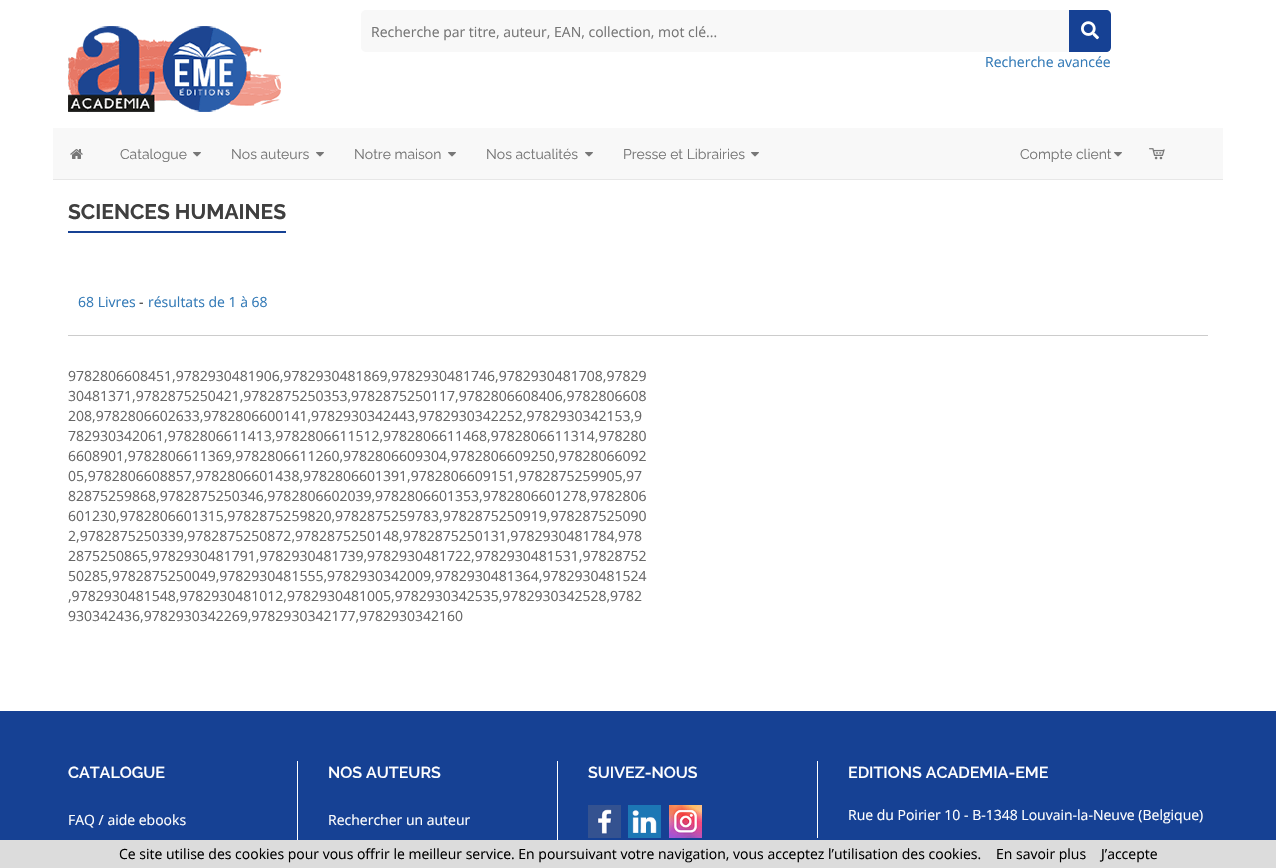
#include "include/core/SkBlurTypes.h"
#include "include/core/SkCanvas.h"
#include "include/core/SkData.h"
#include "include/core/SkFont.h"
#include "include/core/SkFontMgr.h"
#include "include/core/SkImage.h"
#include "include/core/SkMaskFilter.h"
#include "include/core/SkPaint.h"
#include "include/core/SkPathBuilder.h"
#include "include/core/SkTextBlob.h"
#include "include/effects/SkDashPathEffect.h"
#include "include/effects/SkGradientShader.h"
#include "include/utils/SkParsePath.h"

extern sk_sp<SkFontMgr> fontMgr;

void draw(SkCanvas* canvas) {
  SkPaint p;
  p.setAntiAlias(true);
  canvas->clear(SK_ColorWHITE);
  canvas->drawImageRect(SkImages::DeferredFromEncodedData(SkData::MakeFromFileName("images/1.png")), SkRect::MakeLTRB(68, 26, 281, 112), SkSamplingOptions());
  p.setColor(SkColorSetRGB(248, 248, 248));
  canvas->drawRoundRect(SkRect::MakeLTRB(361, 10, 1111, 52), 5, 5, p);
  p.setColor(SkColorSetRGB(22, 65, 148));
  canvas->drawPath(SkPathBuilder().moveTo(1069, 10).lineTo(1106, 10).cubicTo(1109, 10, 1111, 12, 1111, 15).lineTo(1111, 47).cubicTo(1111, 50, 1109, 52, 1106, 52).lineTo(1069, 52).close().detach(), p);
  canvas->drawImageRect(SkImages::DeferredFromEncodedData(SkData::MakeFromFileName("images/2.png")), SkRect::MakeLTRB(1081, 21, 1099, 40), SkSamplingOptions());
  p.setColor(SkColorSetRGB(248, 248, 248));
  canvas->drawRect(SkRect::MakeLTRB(53, 128, 1223, 179), p);
  p.setColor(SkColorSetRGB(231, 231, 231));
  canvas->drawRect(SkRect::MakeLTRB(53, 179, 1223, 180), p);
  canvas->drawImageRect(SkImages::DeferredFromEncodedData(SkData::MakeFromFileName("images/3.png")), SkRect::MakeLTRB(70, 149, 83, 159), SkSamplingOptions());
  canvas->drawImageRect(SkImages::DeferredFromEncodedData(SkData::MakeFromFileName("images/4.png")), SkRect::MakeLTRB(193, 152, 201, 157), SkSamplingOptions());
  canvas->drawImageRect(SkImages::DeferredFromEncodedData(SkData::MakeFromFileName("images/4.png")), SkRect::MakeLTRB(316, 152, 324, 157), SkSamplingOptions());
  canvas->drawImageRect(SkImages::DeferredFromEncodedData(SkData::MakeFromFileName("images/4.png")), SkRect::MakeLTRB(448, 152, 456, 157), SkSamplingOptions());
  canvas->drawImageRect(SkImages::DeferredFromEncodedData(SkData::MakeFromFileName("images/4.png")), SkRect::MakeLTRB(585, 152, 593, 157), SkSamplingOptions());
  canvas->drawImageRect(SkImages::DeferredFromEncodedData(SkData::MakeFromFileName("images/4.png")), SkRect::MakeLTRB(751, 152, 759, 157), SkSamplingOptions());
  canvas->drawImageRect(SkImages::DeferredFromEncodedData(SkData::MakeFromFileName("images/4.png")), SkRect::MakeLTRB(1114, 152, 1122, 157), SkSamplingOptions());
  canvas->drawImageRect(SkImages::DeferredFromEncodedData(SkData::MakeFromFileName("images/5.png")), SkRect::MakeLTRB(1149, 148, 1165, 160), SkSamplingOptions());
  p.setColor(SkColorSetRGB(22, 65, 148));
  canvas->drawRect(SkRect::MakeLTRB(68, 231, 286, 233), p);
  p.setColor(SkColorSetRGB(204, 204, 204));
  canvas->drawRect(SkRect::MakeLTRB(68, 335, 1208, 336), p);
  p.setColor(SkColorSetRGB(22, 65, 148));
  canvas->drawRect(SkRect::MakeLTRB(0, 711, 1276, 840), p);
  p.setColor(SK_ColorWHITE);
  canvas->drawRect(SkRect::MakeLTRB(297, 761, 298, 840), p);
  canvas->drawRect(SkRect::MakeLTRB(557, 761, 558, 840), p);
  canvas->drawRect(SkRect::MakeLTRB(817, 761, 818, 838), p);
  canvas->drawImageRect(SkImages::DeferredFromEncodedData(SkData::MakeFromFileName("images/6.png")), SkRect::MakeLTRB(588, 805, 621, 838), SkSamplingOptions());
  canvas->drawImageRect(SkImages::DeferredFromEncodedData(SkData::MakeFromFileName("images/7.png")), SkRect::MakeLTRB(628, 805, 661, 838), SkSamplingOptions());
  canvas->drawImageRect(SkImages::DeferredFromEncodedData(SkData::MakeFromFileName("images/8.png")), SkRect::MakeLTRB(669, 805, 702, 838), SkSamplingOptions());
  p.setColor(SkColorSetRGB(220, 220, 220));
  canvas->drawRect(SkRect::MakeLTRB(0, 840, 1276, 868), p);
  SkFont font1(fontMgr->matchFamilyStyle("Open Sans", SkFontStyle::Normal()), 14);
  font1.setSubpixel(true);
  p.setColor(SkColorSetRGB(117, 117, 117));
  canvas->drawString("Recherche par titre, auteur, EAN, collection, mot clé...", 371, 37, font1, p);
  p.setColor(SkColorSetRGB(51, 122, 183));
  canvas->drawString("Recherche avancée", 985, 67, font1, p);
  SkFont font2(fontMgr->matchFamilyStyle("Raleway", SkFontStyle::Normal()), 14);
  font2.setSubpixel(true);
  p.setColor(SkColorSetRGB(117, 117, 117));
  canvas->drawString("Catalogue", 120, 159, font2, p);
  canvas->drawString("Nos auteurs", 231, 159, font2, p);
  canvas->drawString("Notre maison", 354, 159, font2, p);
  canvas->drawString("Nos actualités", 486, 159, font2, p);
  canvas->drawString("Presse et Librairies", 623, 159, font2, p);
  canvas->drawString("Compte client", 1020, 159, font2, p);
  SkFont font3(fontMgr->matchFamilyStyle("Raleway", SkFontStyle::Bold()), 21);
  font3.setSubpixel(true);
  p.setColor(SkColorSetRGB(63, 63, 63));
  canvas->drawString("SCIENCES HUMAINES", 68, 219, font3, p);
  p.setColor(SkColorSetRGB(51, 122, 183));
  canvas->drawString("68 Livres", 78, 307, font1, p);
  p.setColor(SkColorSetRGB(51, 51, 51));
  canvas->drawString("-", 139, 307, font1, p);
  p.setColor(SkColorSetRGB(51, 122, 183));
  canvas->drawString("résultats de 1 à 68", 148, 307, font1, p);
  p.setColor(SkColorSetRGB(102, 102, 102));
  canvas->drawString("9782806608451,9782930481906,9782930481869,9782930481746,9782930481708,97829", 68, 381, font1, p);
  canvas->drawString("30481371,9782875250421,9782875250353,9782875250117,9782806608406,9782806608", 68, 401, font1, p);
  canvas->drawString("208,9782806602633,9782806600141,9782930342443,9782930342252,9782930342153,9", 68, 421, font1, p);
  canvas->drawString("782930342061,9782806611413,9782806611512,9782806611468,9782806611314,978280", 68, 441, font1, p);
  canvas->drawString("6608901,9782806611369,9782806611260,9782806609304,9782806609250,97828066092", 68, 461, font1, p);
  canvas->drawString("05,9782806608857,9782806601438,9782806601391,9782806609151,9782875259905,97", 68, 481, font1, p);
  canvas->drawString("82875259868,9782875250346,9782806602039,9782806601353,9782806601278,9782806", 68, 501, font1, p);
  canvas->drawString("601230,9782806601315,9782875259820,9782875259783,9782875250919,978287525090", 68, 521, font1, p);
  canvas->drawString("2,9782875250339,9782875250872,9782875250148,9782875250131,9782930481784,978", 68, 541, font1, p);
  canvas->drawString("2875250865,9782930481791,9782930481739,9782930481722,9782930481531,97828752", 68, 561, font1, p);
  canvas->drawString("50285,9782875250049,9782930481555,9782930342009,9782930481364,9782930481524", 68, 581, font1, p);
  canvas->drawString(",9782930481548,9782930481012,9782930481005,9782930342535,9782930342528,9782", 68, 601, font1, p);
  canvas->drawString("930342436,9782930342269,9782930342177,9782930342160", 68, 621, font1, p);
  SkFont font4(fontMgr->matchFamilyStyle("Raleway", SkFontStyle(600, SkFontStyle::kNormal_Width, SkFontStyle::kUpright_Slant)), 16);
  font4.setSubpixel(true);
  p.setColor(SK_ColorWHITE);
  canvas->drawString("CATALOGUE", 68, 778, font4, p);
  canvas->drawString("FAQ / aide ebooks", 68, 825, font1, p);
  canvas->drawString("NOS AUTEURS", 328, 778, font4, p);
  canvas->drawString("Rechercher un auteur", 328, 825, font1, p);
  canvas->drawString("SUIVEZ-NOUS", 588, 778, font4, p);
  canvas->drawString("EDITIONS ACADEMIA-EME", 848, 778, font4, p);
  canvas->drawString("Rue du Poirier 10 - B-1348 Louvain-la-Neuve (Belgique)", 848, 820, font1, p);
  p.setColor(SK_ColorBLACK);
  canvas->drawString("Ce site utilise des cookies pour vous offrir le meilleur service. En poursuivant votre navigation, vous acceptez l’utilisation des cookies.", 119, 859, font1, p);
  canvas->drawString("En savoir plus", 996, 859, font1, p);
  canvas->drawString("J’accepte", 1101, 859, font1, p);
}
